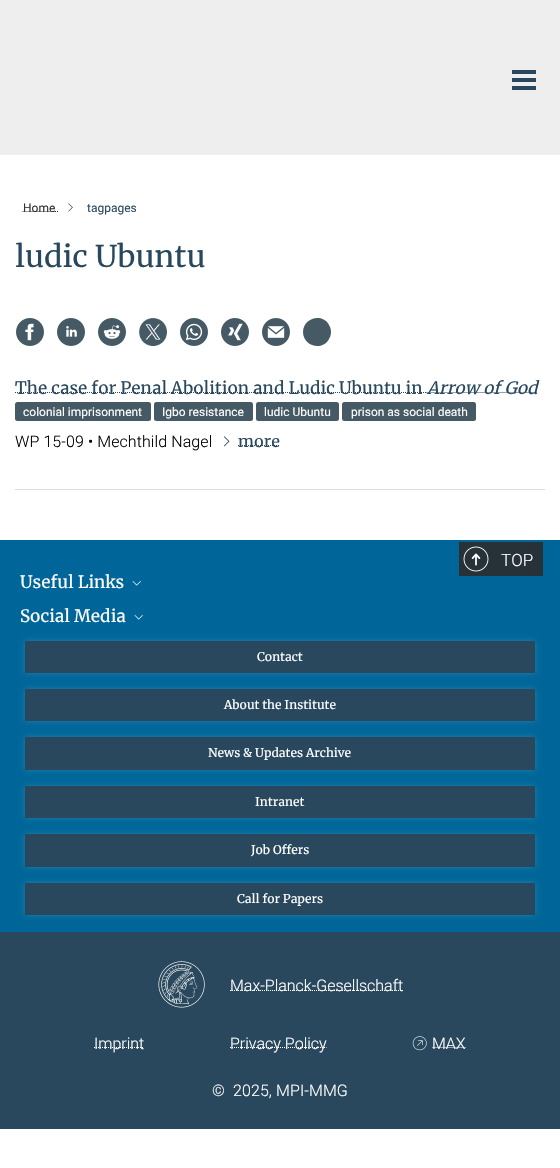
#include "include/core/SkBlurTypes.h"
#include "include/core/SkCanvas.h"
#include "include/core/SkData.h"
#include "include/core/SkFont.h"
#include "include/core/SkFontMgr.h"
#include "include/core/SkImage.h"
#include "include/core/SkMaskFilter.h"
#include "include/core/SkPaint.h"
#include "include/core/SkPathBuilder.h"
#include "include/core/SkTextBlob.h"
#include "include/effects/SkDashPathEffect.h"
#include "include/effects/SkGradientShader.h"
#include "include/utils/SkParsePath.h"

extern sk_sp<SkFontMgr> fontMgr;

void draw(SkCanvas* canvas) {
  SkPaint p;
  p.setAntiAlias(true);
  auto spacedText = [&](const char* s, float x, float y, const SkFont& font, const SkPaint& ink, float letter, float word) {
    std::vector<SkGlyphID> glyphs(font.countText(s, strlen(s), SkTextEncoding::kUTF8));
    std::vector<float> xs(glyphs.size());
    font.textToGlyphs(s, strlen(s), SkTextEncoding::kUTF8, glyphs);
    font.getXPos(glyphs, xs, x);
    float extra = 0;
    for (size_t i = 0; i < glyphs.size(); i++) {
      xs[i] += extra;
      extra += letter + word * (glyphs[i] == font.unicharToGlyph(' '));
    }
    canvas->drawTextBlob(SkTextBlob::MakeFromPosHGlyphs(glyphs, xs, y, font), 0, 0, ink);
  };
  canvas->clear(SK_ColorWHITE);
  p.setColor(SkColorSetRGB(238, 238, 238));
  canvas->drawRect(SkRect::MakeLTRB(0, 0, 560, 155), p);
  p.setColor(SkColorSetRGB(41, 72, 93));
  canvas->drawRect(SkRect::MakeLTRB(512, 70, 536, 74), p);
  canvas->drawRect(SkRect::MakeLTRB(512, 78, 536, 82), p);
  canvas->drawRect(SkRect::MakeLTRB(512, 86, 536, 90), p);
  p.setStyle(SkPaint::kStroke_Style);
  p.setStrokeWidth(1);
  p.setColor(SkColorSetRGB(51, 51, 51));
  p.setPathEffect(SkDashPathEffect::Make({{1, 1}}, 0));
  canvas->drawPath(SkPathBuilder().moveTo(22.5f, 211.5f).lineTo(55, 211.5f).detach(), p);
  p.setPathEffect(nullptr);
  canvas->drawPath(SkPathBuilder().moveTo(55, 211.5f).lineTo(56, 211.5f).moveTo(57, 211.5f).lineTo(58, 211.5f).detach(), p);
  canvas->drawImageRect(SkImages::DeferredFromEncodedData(SkData::MakeFromFileName("images/1.png")), SkRect::MakeLTRB(68, 203, 73, 212), SkSamplingOptions());
  canvas->drawImageRect(SkImages::DeferredFromEncodedData(SkData::MakeFromFileName("images/2.png")), SkRect::MakeLTRB(16, 318, 44, 346), SkSamplingOptions());
  canvas->drawImageRect(SkImages::DeferredFromEncodedData(SkData::MakeFromFileName("images/3.png")), SkRect::MakeLTRB(57, 318, 85, 346), SkSamplingOptions());
  canvas->drawImageRect(SkImages::DeferredFromEncodedData(SkData::MakeFromFileName("images/4.png")), SkRect::MakeLTRB(98, 318, 126, 346), SkSamplingOptions());
  canvas->drawImageRect(SkImages::DeferredFromEncodedData(SkData::MakeFromFileName("images/5.png")), SkRect::MakeLTRB(139, 318, 167, 346), SkSamplingOptions());
  canvas->drawImageRect(SkImages::DeferredFromEncodedData(SkData::MakeFromFileName("images/6.png")), SkRect::MakeLTRB(180, 318, 208, 346), SkSamplingOptions());
  canvas->drawImageRect(SkImages::DeferredFromEncodedData(SkData::MakeFromFileName("images/7.png")), SkRect::MakeLTRB(221, 318, 249, 346), SkSamplingOptions());
  canvas->drawImageRect(SkImages::DeferredFromEncodedData(SkData::MakeFromFileName("images/8.png")), SkRect::MakeLTRB(262, 318, 290, 346), SkSamplingOptions());
  p.setStyle(SkPaint::kFill_Style);
  p.setColor(SkColorSetRGB(69, 90, 100));
  canvas->drawPath(SkPathBuilder().moveTo(331, 332).cubicTo(331, 335, 330, 337.5f, 328.5f, 340).cubicTo(321, 351.5f, 303, 345.5f, 303, 332).cubicTo(303, 318.5f, 321, 312.5f, 328.5f, 324).cubicTo(330, 326.5f, 331, 329, 331, 332).close().detach(), p);
  p.setColor(SkColorSetRGB(221, 221, 221));
  canvas->drawRect(SkRect::MakeLTRB(15, 489, 545, 490), p);
  p.setStyle(SkPaint::kStroke_Style);
  p.setColor(SkColorSetRGB(41, 72, 93));
  p.setPathEffect(SkDashPathEffect::Make({{1, 1}}, 0));
  canvas->drawPath(SkPathBuilder().moveTo(15, 392.5f).lineTo(426.5f, 392.5f).detach(), p);
  p.setPathEffect(nullptr);
  p.setPathEffect(SkDashPathEffect::Make({{1, 1}}, 0));
  canvas->drawPath(SkPathBuilder().moveTo(426.5f, 392.5f).lineTo(537, 392.5f).detach(), p);
  p.setPathEffect(nullptr);
  p.setStyle(SkPaint::kFill_Style);
  p.setColor(SkColorSetRGB(69, 90, 100));
  canvas->drawRoundRect(SkRect::MakeLTRB(15, 402, 151, 421), 2.5f, 2.5f, p);
  canvas->drawRoundRect(SkRect::MakeLTRB(154, 402, 253, 421), 2.5f, 2.5f, p);
  canvas->drawRoundRect(SkRect::MakeLTRB(256, 402, 339, 421), 2.5f, 2.5f, p);
  canvas->drawRoundRect(SkRect::MakeLTRB(342, 402, 476, 421), 2.5f, 2.5f, p);
  canvas->drawImageRect(SkImages::DeferredFromEncodedData(SkData::MakeFromFileName("images/9.png")), SkRect::MakeLTRB(223, 436, 230, 447), SkSamplingOptions());
  p.setStyle(SkPaint::kStroke_Style);
  p.setColor(SkColorSetRGB(41, 72, 93));
  p.setPathEffect(SkDashPathEffect::Make({{1, 1}}, 0));
  canvas->drawPath(SkPathBuilder().moveTo(238, 445.5f).lineTo(280, 445.5f).detach(), p);
  p.setPathEffect(nullptr);
  p.setStyle(SkPaint::kFill_Style);
  p.setColor(SkColorSetRGB(0, 102, 153));
  canvas->drawRect(SkRect::MakeLTRB(0, 540, 560, 932), p);
  p.setColor(SkColorSetRGB(38, 50, 56));
  canvas->drawRect(SkRect::MakeLTRB(459, 542, 543, 576), p);
  canvas->drawImageRect(SkImages::DeferredFromEncodedData(SkData::MakeFromFileName("images/10.png")), SkRect::MakeLTRB(471, 553, 481, 566), SkSamplingOptions());
  canvas->drawImageRect(SkImages::DeferredFromEncodedData(SkData::MakeFromFileName("images/11.png")), SkRect::MakeLTRB(463, 546, 489, 572), SkSamplingOptions());
  canvas->drawImageRect(SkImages::DeferredFromEncodedData(SkData::MakeFromFileName("images/12.png")), SkRect::MakeLTRB(132, 581, 141, 586), SkSamplingOptions());
  canvas->drawImageRect(SkImages::DeferredFromEncodedData(SkData::MakeFromFileName("images/12.png")), SkRect::MakeLTRB(134, 615, 143, 620), SkSamplingOptions());
  p.setColor(SkColorSetARGB(38, 255, 255, 255));
  p.setMaskFilter(SkMaskFilter::MakeBlur(kNormal_SkBlurStyle, 2.5f));
  canvas->drawRect(SkRect::MakeLTRB(25, 641, 535, 673), p);
  p.setMaskFilter(nullptr);
  p.setColor(SkColorSetRGB(41, 72, 93));
  canvas->drawRect(SkRect::MakeLTRB(25, 641, 535, 673), p);
  p.setColor(SkColorSetARGB(38, 255, 255, 255));
  p.setMaskFilter(SkMaskFilter::MakeBlur(kNormal_SkBlurStyle, 2.5f));
  canvas->drawRect(SkRect::MakeLTRB(25, 689, 535, 721), p);
  p.setMaskFilter(nullptr);
  p.setColor(SkColorSetRGB(41, 72, 93));
  canvas->drawRect(SkRect::MakeLTRB(25, 689, 535, 721), p);
  p.setColor(SkColorSetARGB(38, 255, 255, 255));
  p.setMaskFilter(SkMaskFilter::MakeBlur(kNormal_SkBlurStyle, 2.5f));
  canvas->drawRect(SkRect::MakeLTRB(25, 737, 535, 770), p);
  p.setMaskFilter(nullptr);
  p.setColor(SkColorSetRGB(41, 72, 93));
  canvas->drawRect(SkRect::MakeLTRB(25, 737, 535, 770), p);
  p.setColor(SkColorSetARGB(38, 255, 255, 255));
  p.setMaskFilter(SkMaskFilter::MakeBlur(kNormal_SkBlurStyle, 2.5f));
  canvas->drawRect(SkRect::MakeLTRB(25, 786, 535, 818), p);
  p.setMaskFilter(nullptr);
  p.setColor(SkColorSetRGB(41, 72, 93));
  canvas->drawRect(SkRect::MakeLTRB(25, 786, 535, 818), p);
  p.setColor(SkColorSetARGB(38, 255, 255, 255));
  p.setMaskFilter(SkMaskFilter::MakeBlur(kNormal_SkBlurStyle, 2.5f));
  canvas->drawRect(SkRect::MakeLTRB(25, 834, 535, 867), p);
  p.setMaskFilter(nullptr);
  p.setColor(SkColorSetRGB(41, 72, 93));
  canvas->drawRect(SkRect::MakeLTRB(25, 834, 535, 867), p);
  p.setColor(SkColorSetARGB(38, 255, 255, 255));
  p.setMaskFilter(SkMaskFilter::MakeBlur(kNormal_SkBlurStyle, 2.5f));
  canvas->drawRect(SkRect::MakeLTRB(25, 883, 535, 915), p);
  p.setMaskFilter(nullptr);
  p.setColor(SkColorSetRGB(41, 72, 93));
  canvas->drawRect(SkRect::MakeLTRB(25, 883, 535, 915), p);
  canvas->drawRect(SkRect::MakeLTRB(0, 932, 560, 1129), p);
  canvas->drawImageRect(SkImages::DeferredFromEncodedData(SkData::MakeFromFileName("images/13.png")), SkRect::MakeLTRB(158, 961, 205, 1008), SkSamplingOptions());
  p.setStyle(SkPaint::kStroke_Style);
  p.setColor(SK_ColorWHITE);
  p.setPathEffect(SkDashPathEffect::Make({{1, 1}}, 0));
  canvas->drawPath(SkPathBuilder().moveTo(230, 990.5f).lineTo(403, 990.5f).detach(), p);
  p.setPathEffect(nullptr);
  p.setPathEffect(SkDashPathEffect::Make({{1, 1}}, 0));
  canvas->drawPath(SkPathBuilder().moveTo(94, 1047.5f).lineTo(144, 1047.5f).detach(), p);
  p.setPathEffect(nullptr);
  p.setPathEffect(SkDashPathEffect::Make({{1, 1}}, 0));
  canvas->drawPath(SkPathBuilder().moveTo(230, 1047.5f).lineTo(326.5f, 1047.5f).detach(), p);
  p.setPathEffect(nullptr);
  canvas->drawImageRect(SkImages::DeferredFromEncodedData(SkData::MakeFromFileName("images/14.png")), SkRect::MakeLTRB(412, 1036, 427, 1051), SkSamplingOptions());
  p.setPathEffect(SkDashPathEffect::Make({{1, 1}}, 0));
  canvas->drawPath(SkPathBuilder().moveTo(432.5f, 1047.5f).lineTo(466, 1047.5f).detach(), p);
  p.setPathEffect(nullptr);
  SkFont font1(fontMgr->matchFamilyStyle("Roboto", SkFontStyle::Normal()), 12);
  font1.setSubpixel(true);
  p.setStyle(SkPaint::kFill_Style);
  p.setColor(SkColorSetRGB(51, 51, 51));
  canvas->drawString("Home", 23, 212, font1, p);
  p.setColor(SkColorSetRGB(41, 72, 93));
  canvas->drawString("tagpages", 87, 212, font1, p);
  SkFont font2(fontMgr->matchFamilyStyle("Merriweather", SkFontStyle::Normal()), 30);
  font2.setSubpixel(true);
  canvas->drawString("ludic Ubuntu", 15, 267, font2, p);
  SkFont font3(fontMgr->matchFamilyStyle("Merriweather", SkFontStyle::Normal()), 17);
  font3.setSubpixel(true);
  canvas->drawString("The case for Penal Abolition and Ludic Ubuntu in", 15, 394, font3, p);
  SkFont font4(fontMgr->matchFamilyStyle("Merriweather", SkFontStyle::Italic()), 17);
  font4.setSubpixel(true);
  canvas->drawString("Arrow of God", 427, 394, font4, p);
  p.setColor(SK_ColorWHITE);
  canvas->drawString("colonial imprisonment", 23, 416, font1, p);
  canvas->drawString("Igbo resistance", 162, 416, font1, p);
  canvas->drawString("ludic Ubuntu", 264, 416, font1, p);
  canvas->drawString("prison as social death", 351, 416, font1, p);
  SkFont font5(fontMgr->matchFamilyStyle("Roboto", SkFontStyle(300, SkFontStyle::kNormal_Width, SkFontStyle::kUpright_Slant)), 16);
  font5.setSubpixel(true);
  p.setColor(SK_ColorBLACK);
  spacedText("WP 15-09 • Mechthild Nagel", 15, 447, font5, p, 0.1f, 0);
  SkFont font6(fontMgr->matchFamilyStyle("Merriweather", SkFontStyle::Normal()), 16);
  font6.setSubpixel(true);
  p.setColor(SkColorSetRGB(41, 72, 93));
  spacedText("more", 238, 447, font6, p, 0.1f, 0);
  SkFont font7(fontMgr->matchFamilyStyle("Roboto", SkFontStyle(300, SkFontStyle::kNormal_Width, SkFontStyle::kUpright_Slant)), 17);
  font7.setSubpixel(true);
  p.setColor(SK_ColorWHITE);
  canvas->drawString("TOP", 501, 566, font7, p);
  canvas->drawString("Useful Links", 20, 588, font3, p);
  canvas->drawString("Social Media", 20, 622, font3, p);
  SkFont font8(fontMgr->matchFamilyStyle("Merriweather", SkFontStyle::Normal()), 12);
  font8.setSubpixel(true);
  canvas->drawString("Contact", 257, 661, font8, p);
  canvas->drawString("About the Institute", 224, 709, font8, p);
  canvas->drawString("News & Updates Archive", 208, 757, font8, p);
  canvas->drawString("Intranet", 255, 806, font8, p);
  canvas->drawString("Job Offers", 251, 854, font8, p);
  canvas->drawString("Call for Papers", 237, 903, font8, p);
  canvas->drawString("Max-Planck-Gesellschaft", 230, 991, font5, p);
  canvas->drawString("Imprint", 94, 1049, font5, p);
  canvas->drawString("Privacy Policy", 230, 1049, font5, p);
  canvas->drawString("MAX", 432, 1049, font5, p);
  canvas->drawString("©", 212, 1096, font5, p);
  spacedText("2025, MPI-MMG", 233, 1096, font5, p, 0.1f, 0);
}
